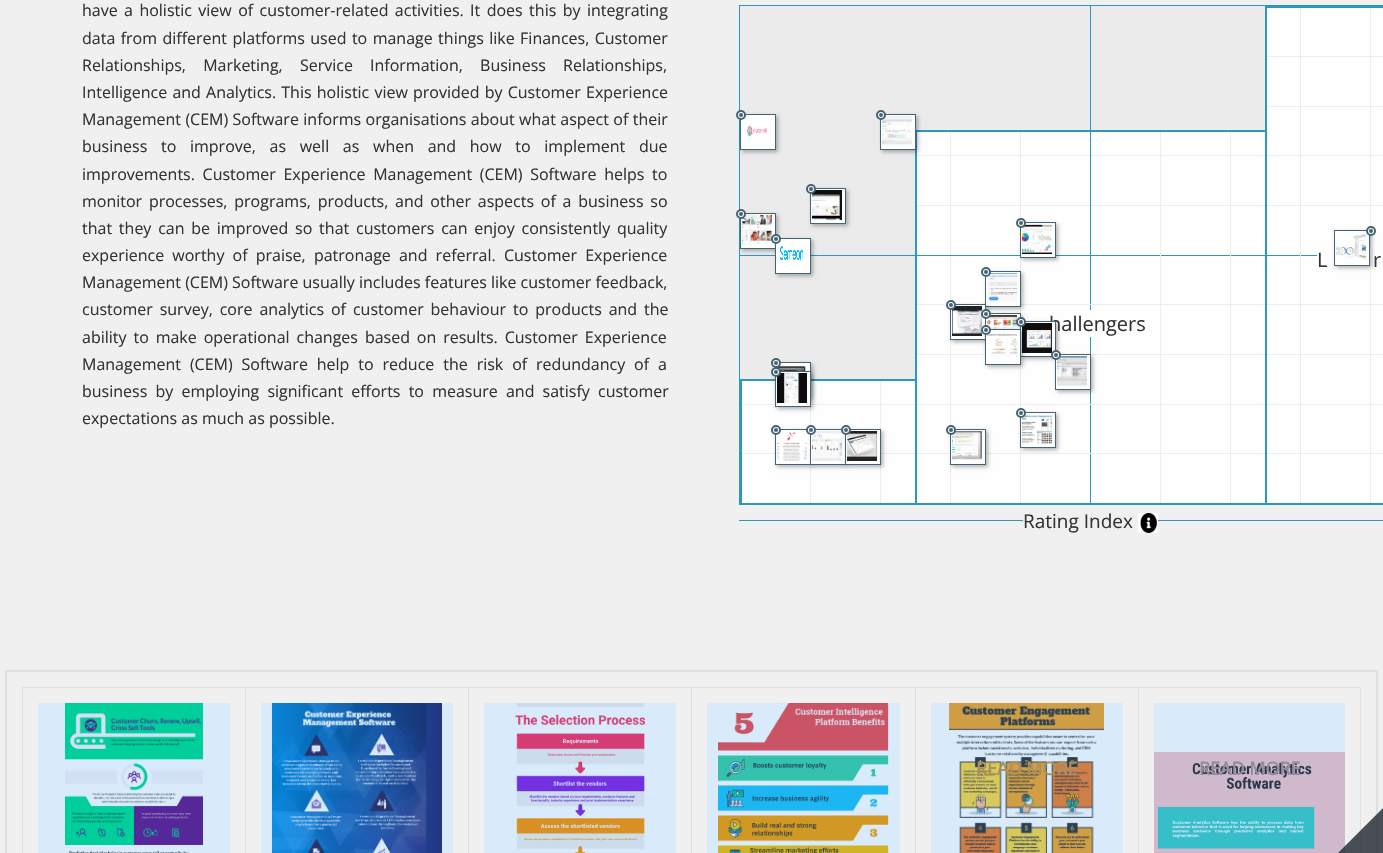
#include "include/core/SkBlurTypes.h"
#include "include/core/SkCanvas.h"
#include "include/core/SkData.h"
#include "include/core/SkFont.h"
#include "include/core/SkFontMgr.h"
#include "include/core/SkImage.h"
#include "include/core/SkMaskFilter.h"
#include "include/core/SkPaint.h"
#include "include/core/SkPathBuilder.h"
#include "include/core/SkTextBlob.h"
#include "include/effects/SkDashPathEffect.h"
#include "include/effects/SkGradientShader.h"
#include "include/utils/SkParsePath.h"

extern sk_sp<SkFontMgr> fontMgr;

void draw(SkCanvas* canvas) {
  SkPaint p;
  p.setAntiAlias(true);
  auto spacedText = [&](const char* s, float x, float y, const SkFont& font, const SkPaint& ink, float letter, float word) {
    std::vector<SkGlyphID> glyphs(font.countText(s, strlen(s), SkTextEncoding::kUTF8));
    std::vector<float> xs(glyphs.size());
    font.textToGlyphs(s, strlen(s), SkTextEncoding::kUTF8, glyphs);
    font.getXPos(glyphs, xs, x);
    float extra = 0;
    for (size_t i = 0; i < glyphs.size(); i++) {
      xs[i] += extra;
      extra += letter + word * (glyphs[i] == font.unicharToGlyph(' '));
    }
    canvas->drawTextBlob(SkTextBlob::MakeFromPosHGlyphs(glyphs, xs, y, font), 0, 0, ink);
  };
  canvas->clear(SkColorSetRGB(240, 240, 240));
  p.setColor(SkColorSetRGB(235, 235, 235));
  canvas->drawRect(SkRect::MakeLTRB(740, 6, 1265, 379), p);
  p.setColor(SkColorSetRGB(44, 152, 187));
  canvas->drawRect(SkRect::MakeLTRB(739, 5, 1383, 6), p);
  canvas->drawRect(SkRect::MakeLTRB(739, 503, 1383, 505), p);
  canvas->drawRect(SkRect::MakeLTRB(739, 5, 740, 505), p);
  p.setColor(SkColorSetRGB(254, 254, 254));
  canvas->drawRect(SkRect::MakeLTRB(917, 132, 1265, 503), p);
  p.setColor(SkColorSetRGB(237, 237, 237));
  canvas->drawRect(SkRect::MakeLTRB(950, 132, 951, 503), p);
  p.setColor(SkColorSetRGB(254, 254, 254));
  canvas->drawRect(SkRect::MakeLTRB(1267, 8, 1383, 503), p);
  p.setColor(SkColorSetRGB(237, 237, 237));
  canvas->drawRect(SkRect::MakeLTRB(917, 155, 1383, 156), p);
  canvas->drawRect(SkRect::MakeLTRB(1020, 132, 1021, 503), p);
  canvas->drawRect(SkRect::MakeLTRB(917, 205, 1383, 206), p);
  p.setColor(SkColorSetRGB(44, 152, 187));
  canvas->drawRect(SkRect::MakeLTRB(1090, 6, 1091, 503), p);
  p.setColor(SkColorSetRGB(237, 237, 237));
  canvas->drawRect(SkRect::MakeLTRB(1265, 56, 1383, 57), p);
  canvas->drawRect(SkRect::MakeLTRB(1265, 106, 1383, 107), p);
  p.setColor(SkColorSetRGB(44, 152, 187));
  canvas->drawRect(SkRect::MakeLTRB(740, 255, 1317, 256), p);
  p.setColor(SkColorSetRGB(237, 237, 237));
  canvas->drawRect(SkRect::MakeLTRB(1160, 132, 1161, 503), p);
  canvas->drawRect(SkRect::MakeLTRB(917, 304, 1383, 305), p);
  canvas->drawRect(SkRect::MakeLTRB(1230, 132, 1231, 503), p);
  canvas->drawRect(SkRect::MakeLTRB(917, 354, 1383, 355), p);
  canvas->drawRect(SkRect::MakeLTRB(1300, 6, 1301, 503), p);
  p.setColor(SkColorSetRGB(254, 254, 254));
  canvas->drawRect(SkRect::MakeLTRB(742, 381, 915, 503), p);
  p.setColor(SkColorSetRGB(237, 237, 237));
  canvas->drawRect(SkRect::MakeLTRB(810, 379, 811, 503), p);
  canvas->drawRect(SkRect::MakeLTRB(880, 379, 881, 503), p);
  canvas->drawRect(SkRect::MakeLTRB(740, 404, 1383, 405), p);
  canvas->drawRect(SkRect::MakeLTRB(1370, 6, 1371, 503), p);
  p.setColor(SkColorSetARGB(77, 0, 0, 0));
  p.setMaskFilter(SkMaskFilter::MakeBlur(kNormal_SkBlurStyle, 2));
  canvas->drawRect(SkRect::MakeLTRB(742, 116, 778, 152), p);
  p.setMaskFilter(nullptr);
  p.setColor(SkColorSetRGB(254, 254, 254));
  canvas->drawRect(SkRect::MakeLTRB(740.5f, 114.5f, 775.5f, 149.5f), p);
  p.setStyle(SkPaint::kStroke_Style);
  p.setStrokeWidth(1);
  p.setColor(SkColorSetRGB(68, 99, 115));
  canvas->drawRect(SkRect::MakeLTRB(740.5f, 114.5f, 775.5f, 149.5f), p);
  canvas->drawImageRect(SkImages::DeferredFromEncodedData(SkData::MakeFromFileName("images/1.png")), SkRect::MakeLTRB(747, 125, 767, 137), SkSamplingOptions());
  p.setStyle(SkPaint::kFill_Style);
  p.setColor(SkColorSetRGB(254, 254, 254));
  canvas->drawCircle(741, 115, 4, p);
  p.setStyle(SkPaint::kStroke_Style);
  p.setStrokeWidth(2);
  p.setColor(SkColorSetRGB(68, 99, 115));
  canvas->drawCircle(741, 115, 4, p);
  p.setStyle(SkPaint::kFill_Style);
  canvas->drawCircle(741, 115, 2, p);
  p.setColor(SkColorSetRGB(44, 152, 187));
  canvas->drawRect(SkRect::MakeLTRB(915, 130, 1265, 132), p);
  p.setColor(SkColorSetRGB(237, 237, 237));
  canvas->drawRect(SkRect::MakeLTRB(740, 453, 1383, 454), p);
  p.setColor(SkColorSetRGB(44, 152, 187));
  canvas->drawRect(SkRect::MakeLTRB(915, 130, 917, 503), p);
  p.setColor(SkColorSetARGB(77, 0, 0, 0));
  p.setMaskFilter(SkMaskFilter::MakeBlur(kNormal_SkBlurStyle, 2));
  canvas->drawRect(SkRect::MakeLTRB(882, 116, 918, 152), p);
  p.setMaskFilter(nullptr);
  p.setColor(SkColorSetRGB(254, 254, 254));
  canvas->drawRect(SkRect::MakeLTRB(880.5f, 114.5f, 915.5f, 149.5f), p);
  p.setStyle(SkPaint::kStroke_Style);
  p.setStrokeWidth(1);
  p.setColor(SkColorSetRGB(68, 99, 115));
  canvas->drawRect(SkRect::MakeLTRB(880.5f, 114.5f, 915.5f, 149.5f), p);
  canvas->drawImageRect(SkImages::DeferredFromEncodedData(SkData::MakeFromFileName("images/2.png")), SkRect::MakeLTRB(882, 116, 912, 145), SkSamplingOptions());
  p.setStyle(SkPaint::kFill_Style);
  p.setColor(SkColorSetRGB(254, 254, 254));
  canvas->drawCircle(881, 115, 4, p);
  p.setStyle(SkPaint::kStroke_Style);
  p.setStrokeWidth(2);
  p.setColor(SkColorSetRGB(68, 99, 115));
  canvas->drawCircle(881, 115, 4, p);
  p.setStyle(SkPaint::kFill_Style);
  canvas->drawCircle(881, 115, 2, p);
  p.setColor(SkColorSetARGB(77, 0, 0, 0));
  p.setMaskFilter(SkMaskFilter::MakeBlur(kNormal_SkBlurStyle, 2));
  canvas->drawRect(SkRect::MakeLTRB(742, 215, 778, 251), p);
  p.setMaskFilter(nullptr);
  p.setColor(SkColorSetRGB(254, 254, 254));
  canvas->drawRect(SkRect::MakeLTRB(740.5f, 213.5f, 775.5f, 248.5f), p);
  p.setStyle(SkPaint::kStroke_Style);
  p.setStrokeWidth(1);
  p.setColor(SkColorSetRGB(68, 99, 115));
  canvas->drawRect(SkRect::MakeLTRB(740.5f, 213.5f, 775.5f, 248.5f), p);
  canvas->drawImageRect(SkImages::DeferredFromEncodedData(SkData::MakeFromFileName("images/3.png")), SkRect::MakeLTRB(742, 215, 772, 245), SkSamplingOptions());
  p.setStyle(SkPaint::kFill_Style);
  p.setColor(SkColorSetRGB(254, 254, 254));
  canvas->drawCircle(741, 214, 4, p);
  p.setStyle(SkPaint::kStroke_Style);
  p.setStrokeWidth(2);
  p.setColor(SkColorSetRGB(68, 99, 115));
  canvas->drawCircle(741, 214, 4, p);
  p.setStyle(SkPaint::kFill_Style);
  canvas->drawCircle(741, 214, 2, p);
  p.setColor(SkColorSetARGB(77, 0, 0, 0));
  p.setMaskFilter(SkMaskFilter::MakeBlur(kNormal_SkBlurStyle, 2));
  canvas->drawRect(SkRect::MakeLTRB(777, 240, 813, 276), p);
  p.setMaskFilter(nullptr);
  p.setColor(SkColorSetRGB(254, 254, 254));
  canvas->drawRect(SkRect::MakeLTRB(775.5f, 238.5f, 810.5f, 273.5f), p);
  p.setStyle(SkPaint::kStroke_Style);
  p.setStrokeWidth(1);
  p.setColor(SkColorSetRGB(68, 99, 115));
  canvas->drawRect(SkRect::MakeLTRB(775.5f, 238.5f, 810.5f, 273.5f), p);
  canvas->drawImageRect(SkImages::DeferredFromEncodedData(SkData::MakeFromFileName("images/4.png")), SkRect::MakeLTRB(780, 246, 803, 261), SkSamplingOptions());
  p.setStyle(SkPaint::kFill_Style);
  p.setColor(SkColorSetRGB(254, 254, 254));
  canvas->drawCircle(776, 239, 4, p);
  p.setStyle(SkPaint::kStroke_Style);
  p.setStrokeWidth(2);
  p.setColor(SkColorSetRGB(68, 99, 115));
  canvas->drawCircle(776, 239, 4, p);
  p.setStyle(SkPaint::kFill_Style);
  canvas->drawCircle(776, 239, 2, p);
  p.setColor(SkColorSetARGB(77, 0, 0, 0));
  p.setMaskFilter(SkMaskFilter::MakeBlur(kNormal_SkBlurStyle, 2));
  canvas->drawRect(SkRect::MakeLTRB(812, 190, 848, 226), p);
  p.setMaskFilter(nullptr);
  p.setColor(SkColorSetRGB(254, 254, 254));
  canvas->drawRect(SkRect::MakeLTRB(810.5f, 188.5f, 845.5f, 223.5f), p);
  p.setStyle(SkPaint::kStroke_Style);
  p.setStrokeWidth(1);
  p.setColor(SkColorSetRGB(68, 99, 115));
  canvas->drawRect(SkRect::MakeLTRB(810.5f, 188.5f, 845.5f, 223.5f), p);
  canvas->drawImageRect(SkImages::DeferredFromEncodedData(SkData::MakeFromFileName("images/5.png")), SkRect::MakeLTRB(812, 190, 842, 220), SkSamplingOptions());
  p.setStyle(SkPaint::kFill_Style);
  p.setColor(SkColorSetRGB(254, 254, 254));
  canvas->drawCircle(811, 189, 4, p);
  p.setStyle(SkPaint::kStroke_Style);
  p.setStrokeWidth(2);
  p.setColor(SkColorSetRGB(68, 99, 115));
  canvas->drawCircle(811, 189, 4, p);
  p.setStyle(SkPaint::kFill_Style);
  canvas->drawCircle(811, 189, 2, p);
  p.setColor(SkColorSetARGB(77, 0, 0, 0));
  p.setMaskFilter(SkMaskFilter::MakeBlur(kNormal_SkBlurStyle, 2));
  canvas->drawRect(SkRect::MakeLTRB(1022, 224, 1058, 260), p);
  p.setMaskFilter(nullptr);
  p.setColor(SkColorSetRGB(254, 254, 254));
  canvas->drawRect(SkRect::MakeLTRB(1020.5f, 222.5f, 1055.5f, 257.5f), p);
  p.setStyle(SkPaint::kStroke_Style);
  p.setStrokeWidth(1);
  p.setColor(SkColorSetRGB(68, 99, 115));
  canvas->drawRect(SkRect::MakeLTRB(1020.5f, 222.5f, 1055.5f, 257.5f), p);
  canvas->drawImageRect(SkImages::DeferredFromEncodedData(SkData::MakeFromFileName("images/6.png")), SkRect::MakeLTRB(1022, 224, 1052, 254), SkSamplingOptions());
  p.setStyle(SkPaint::kFill_Style);
  p.setColor(SkColorSetRGB(254, 254, 254));
  canvas->drawCircle(1021, 223, 4, p);
  p.setStyle(SkPaint::kStroke_Style);
  p.setStrokeWidth(2);
  p.setColor(SkColorSetRGB(68, 99, 115));
  canvas->drawCircle(1021, 223, 4, p);
  p.setStyle(SkPaint::kFill_Style);
  canvas->drawCircle(1021, 223, 2, p);
  p.setColor(SK_ColorWHITE);
  canvas->drawRect(SkRect::MakeLTRB(1370, 246, 1371, 273), p);
  p.setColor(SkColorSetARGB(77, 0, 0, 0));
  p.setMaskFilter(SkMaskFilter::MakeBlur(kNormal_SkBlurStyle, 2));
  canvas->drawRect(SkRect::MakeLTRB(1336, 232, 1372, 268), p);
  p.setMaskFilter(nullptr);
  p.setColor(SkColorSetRGB(254, 254, 254));
  canvas->drawRect(SkRect::MakeLTRB(1334.5f, 230.5f, 1369.5f, 265.5f), p);
  p.setStyle(SkPaint::kStroke_Style);
  p.setStrokeWidth(1);
  p.setColor(SkColorSetRGB(68, 99, 115));
  canvas->drawRect(SkRect::MakeLTRB(1334.5f, 230.5f, 1369.5f, 265.5f), p);
  canvas->drawImageRect(SkImages::DeferredFromEncodedData(SkData::MakeFromFileName("images/7.png")), SkRect::MakeLTRB(1336, 233, 1366, 259), SkSamplingOptions());
  p.setStyle(SkPaint::kFill_Style);
  p.setColor(SkColorSetRGB(254, 254, 254));
  canvas->drawCircle(1371, 231, 4, p);
  p.setStyle(SkPaint::kStroke_Style);
  p.setStrokeWidth(2);
  p.setColor(SkColorSetRGB(68, 99, 115));
  canvas->drawCircle(1371, 231, 4, p);
  p.setStyle(SkPaint::kFill_Style);
  canvas->drawCircle(1371, 231, 2, p);
  p.setColor(SkColorSetARGB(77, 0, 0, 0));
  p.setMaskFilter(SkMaskFilter::MakeBlur(kNormal_SkBlurStyle, 2));
  canvas->drawRect(SkRect::MakeLTRB(987, 273, 1023, 309), p);
  p.setMaskFilter(nullptr);
  p.setColor(SkColorSetRGB(254, 254, 254));
  canvas->drawRect(SkRect::MakeLTRB(985.5f, 271.5f, 1020.5f, 306.5f), p);
  p.setStyle(SkPaint::kStroke_Style);
  p.setStrokeWidth(1);
  p.setColor(SkColorSetRGB(68, 99, 115));
  canvas->drawRect(SkRect::MakeLTRB(985.5f, 271.5f, 1020.5f, 306.5f), p);
  canvas->drawImageRect(SkImages::DeferredFromEncodedData(SkData::MakeFromFileName("images/8.png")), SkRect::MakeLTRB(987, 273, 1017, 302), SkSamplingOptions());
  p.setStyle(SkPaint::kFill_Style);
  p.setColor(SkColorSetRGB(254, 254, 254));
  canvas->drawCircle(986, 272, 4, p);
  p.setStyle(SkPaint::kStroke_Style);
  p.setStrokeWidth(2);
  p.setColor(SkColorSetRGB(68, 99, 115));
  canvas->drawCircle(986, 272, 4, p);
  p.setStyle(SkPaint::kFill_Style);
  canvas->drawCircle(986, 272, 2, p);
  p.setColor(SkColorSetARGB(77, 0, 0, 0));
  p.setMaskFilter(SkMaskFilter::MakeBlur(kNormal_SkBlurStyle, 2));
  canvas->drawRect(SkRect::MakeLTRB(952, 306, 988, 342), p);
  p.setMaskFilter(nullptr);
  p.setColor(SkColorSetRGB(254, 254, 254));
  canvas->drawRect(SkRect::MakeLTRB(950.5f, 304.5f, 985.5f, 339.5f), p);
  p.setStyle(SkPaint::kStroke_Style);
  p.setStrokeWidth(1);
  p.setColor(SkColorSetRGB(68, 99, 115));
  canvas->drawRect(SkRect::MakeLTRB(950.5f, 304.5f, 985.5f, 339.5f), p);
  canvas->drawImageRect(SkImages::DeferredFromEncodedData(SkData::MakeFromFileName("images/9.png")), SkRect::MakeLTRB(952, 306, 982, 336), SkSamplingOptions());
  p.setStyle(SkPaint::kFill_Style);
  p.setColor(SkColorSetRGB(254, 254, 254));
  canvas->drawCircle(951, 305, 4, p);
  p.setStyle(SkPaint::kStroke_Style);
  p.setStrokeWidth(2);
  p.setColor(SkColorSetRGB(68, 99, 115));
  canvas->drawCircle(951, 305, 4, p);
  p.setStyle(SkPaint::kFill_Style);
  canvas->drawCircle(951, 305, 2, p);
  p.setColor(SkColorSetARGB(77, 0, 0, 0));
  p.setMaskFilter(SkMaskFilter::MakeBlur(kNormal_SkBlurStyle, 2));
  canvas->drawRect(SkRect::MakeLTRB(987, 315, 1023, 351), p);
  p.setMaskFilter(nullptr);
  p.setColor(SkColorSetRGB(254, 254, 254));
  canvas->drawRect(SkRect::MakeLTRB(986, 314, 1020, 329), p);
  p.setStyle(SkPaint::kStroke_Style);
  p.setStrokeWidth(1);
  p.setColor(SkColorSetRGB(68, 99, 115));
  canvas->drawRect(SkRect::MakeLTRB(985.5f, 313.5f, 1020.5f, 348.5f), p);
  canvas->drawImageRect(SkImages::DeferredFromEncodedData(SkData::MakeFromFileName("images/10.png")), SkRect::MakeLTRB(987, 315, 1017, 329), SkSamplingOptions());
  p.setStyle(SkPaint::kFill_Style);
  p.setColor(SkColorSetRGB(254, 254, 254));
  canvas->drawCircle(986, 314, 4, p);
  p.setStyle(SkPaint::kStroke_Style);
  p.setStrokeWidth(2);
  p.setColor(SkColorSetRGB(68, 99, 115));
  canvas->drawCircle(986, 314, 4, p);
  p.setStyle(SkPaint::kFill_Style);
  canvas->drawCircle(986, 314, 2, p);
  p.setColor(SkColorSetARGB(77, 0, 0, 0));
  p.setMaskFilter(SkMaskFilter::MakeBlur(kNormal_SkBlurStyle, 2));
  canvas->drawRect(SkRect::MakeLTRB(1022, 323, 1058, 359), p);
  p.setMaskFilter(nullptr);
  p.setColor(SkColorSetRGB(44, 152, 187));
  canvas->drawRect(SkRect::MakeLTRB(740, 379, 915, 381), p);
  p.setColor(SkColorSetARGB(77, 0, 0, 0));
  p.setMaskFilter(SkMaskFilter::MakeBlur(kNormal_SkBlurStyle, 2));
  canvas->drawRect(SkRect::MakeLTRB(777, 364, 813, 400), p);
  p.setMaskFilter(nullptr);
  p.setColor(SkColorSetRGB(254, 254, 254));
  canvas->drawRect(SkRect::MakeLTRB(776, 363, 810, 371), p);
  p.setStyle(SkPaint::kStroke_Style);
  p.setStrokeWidth(1);
  p.setColor(SkColorSetRGB(68, 99, 115));
  canvas->drawRect(SkRect::MakeLTRB(775.5f, 362.5f, 810.5f, 397.5f), p);
  canvas->drawImageRect(SkImages::DeferredFromEncodedData(SkData::MakeFromFileName("images/12.png")), SkRect::MakeLTRB(777, 365, 807, 371), SkSamplingOptions());
  p.setStyle(SkPaint::kFill_Style);
  p.setColor(SkColorSetARGB(77, 0, 0, 0));
  p.setMaskFilter(SkMaskFilter::MakeBlur(kNormal_SkBlurStyle, 2));
  canvas->drawRect(SkRect::MakeLTRB(777, 373, 813, 409), p);
  p.setMaskFilter(nullptr);
  p.setColor(SkColorSetRGB(254, 254, 254));
  canvas->drawCircle(776, 363, 4, p);
  p.setStyle(SkPaint::kStroke_Style);
  p.setStrokeWidth(2);
  p.setColor(SkColorSetRGB(68, 99, 115));
  canvas->drawCircle(776, 363, 4, p);
  p.setStyle(SkPaint::kFill_Style);
  canvas->drawCircle(776, 363, 2, p);
  p.setColor(SkColorSetRGB(254, 254, 254));
  canvas->drawRect(SkRect::MakeLTRB(775.5f, 371.5f, 810.5f, 406.5f), p);
  p.setStyle(SkPaint::kStroke_Style);
  p.setStrokeWidth(1);
  p.setColor(SkColorSetRGB(68, 99, 115));
  canvas->drawRect(SkRect::MakeLTRB(775.5f, 371.5f, 810.5f, 406.5f), p);
  canvas->drawImageRect(SkImages::DeferredFromEncodedData(SkData::MakeFromFileName("images/15.png")), SkRect::MakeLTRB(777, 373, 807, 403), SkSamplingOptions());
  p.setStyle(SkPaint::kFill_Style);
  p.setColor(SkColorSetRGB(254, 254, 254));
  canvas->drawCircle(776, 372, 4, p);
  p.setStyle(SkPaint::kStroke_Style);
  p.setStrokeWidth(2);
  p.setColor(SkColorSetRGB(68, 99, 115));
  canvas->drawCircle(776, 372, 4, p);
  p.setStyle(SkPaint::kFill_Style);
  canvas->drawCircle(776, 372, 2, p);
  p.setColor(SK_ColorWHITE);
  canvas->drawRect(SkRect::MakeLTRB(810, 465, 811, 467), p);
  p.setColor(SkColorSetARGB(77, 0, 0, 0));
  p.setMaskFilter(SkMaskFilter::MakeBlur(kNormal_SkBlurStyle, 2));
  canvas->drawRect(SkRect::MakeLTRB(777, 431, 813, 467), p);
  p.setMaskFilter(nullptr);
  p.setColor(SkColorSetRGB(254, 254, 254));
  canvas->drawRect(SkRect::MakeLTRB(775.5f, 429.5f, 810.5f, 464.5f), p);
  p.setStyle(SkPaint::kStroke_Style);
  p.setStrokeWidth(1);
  p.setColor(SkColorSetRGB(68, 99, 115));
  canvas->drawRect(SkRect::MakeLTRB(775.5f, 429.5f, 810.5f, 464.5f), p);
  canvas->drawImageRect(SkImages::DeferredFromEncodedData(SkData::MakeFromFileName("images/16.png")), SkRect::MakeLTRB(777, 431, 807, 461), SkSamplingOptions());
  p.setStyle(SkPaint::kFill_Style);
  p.setColor(SkColorSetRGB(254, 254, 254));
  canvas->drawCircle(776, 430, 4, p);
  p.setStyle(SkPaint::kStroke_Style);
  p.setStrokeWidth(2);
  p.setColor(SkColorSetRGB(68, 99, 115));
  canvas->drawCircle(776, 430, 4, p);
  p.setStyle(SkPaint::kFill_Style);
  canvas->drawCircle(776, 430, 2, p);
  p.setColor(SkColorSetARGB(77, 0, 0, 0));
  p.setMaskFilter(SkMaskFilter::MakeBlur(kNormal_SkBlurStyle, 2));
  canvas->drawRect(SkRect::MakeLTRB(812, 431, 848, 467), p);
  p.setMaskFilter(nullptr);
  p.setColor(SkColorSetRGB(254, 254, 254));
  canvas->drawRect(SkRect::MakeLTRB(810.5f, 429.5f, 845.5f, 464.5f), p);
  p.setStyle(SkPaint::kStroke_Style);
  p.setStrokeWidth(1);
  p.setColor(SkColorSetRGB(68, 99, 115));
  canvas->drawRect(SkRect::MakeLTRB(810.5f, 429.5f, 845.5f, 464.5f), p);
  canvas->drawImageRect(SkImages::DeferredFromEncodedData(SkData::MakeFromFileName("images/17.png")), SkRect::MakeLTRB(812, 431, 842, 461), SkSamplingOptions());
  p.setStyle(SkPaint::kFill_Style);
  p.setColor(SkColorSetRGB(254, 254, 254));
  canvas->drawCircle(811, 430, 4, p);
  p.setStyle(SkPaint::kStroke_Style);
  p.setStrokeWidth(2);
  p.setColor(SkColorSetRGB(68, 99, 115));
  canvas->drawCircle(811, 430, 4, p);
  p.setStyle(SkPaint::kFill_Style);
  canvas->drawCircle(811, 430, 2, p);
  p.setColor(SkColorSetARGB(77, 0, 0, 0));
  p.setMaskFilter(SkMaskFilter::MakeBlur(kNormal_SkBlurStyle, 2));
  canvas->drawRect(SkRect::MakeLTRB(847, 431, 883, 467), p);
  p.setMaskFilter(nullptr);
  p.setColor(SkColorSetRGB(254, 254, 254));
  canvas->drawRect(SkRect::MakeLTRB(845.5f, 429.5f, 880.5f, 464.5f), p);
  p.setStyle(SkPaint::kStroke_Style);
  p.setStrokeWidth(1);
  p.setColor(SkColorSetRGB(68, 99, 115));
  canvas->drawRect(SkRect::MakeLTRB(845.5f, 429.5f, 880.5f, 464.5f), p);
  canvas->drawImageRect(SkImages::DeferredFromEncodedData(SkData::MakeFromFileName("images/18.png")), SkRect::MakeLTRB(847, 431, 877, 461), SkSamplingOptions());
  p.setStyle(SkPaint::kFill_Style);
  p.setColor(SkColorSetRGB(254, 254, 254));
  canvas->drawCircle(846, 430, 4, p);
  p.setStyle(SkPaint::kStroke_Style);
  p.setStrokeWidth(2);
  p.setColor(SkColorSetRGB(68, 99, 115));
  canvas->drawCircle(846, 430, 4, p);
  p.setStyle(SkPaint::kFill_Style);
  canvas->drawCircle(846, 430, 2, p);
  p.setColor(SkColorSetARGB(77, 0, 0, 0));
  p.setMaskFilter(SkMaskFilter::MakeBlur(kNormal_SkBlurStyle, 2));
  canvas->drawRect(SkRect::MakeLTRB(952, 431, 988, 467), p);
  p.setMaskFilter(nullptr);
  p.setColor(SkColorSetRGB(254, 254, 254));
  canvas->drawRect(SkRect::MakeLTRB(950.5f, 429.5f, 985.5f, 464.5f), p);
  p.setStyle(SkPaint::kStroke_Style);
  p.setStrokeWidth(1);
  p.setColor(SkColorSetRGB(68, 99, 115));
  canvas->drawRect(SkRect::MakeLTRB(950.5f, 429.5f, 985.5f, 464.5f), p);
  canvas->drawImageRect(SkImages::DeferredFromEncodedData(SkData::MakeFromFileName("images/19.png")), SkRect::MakeLTRB(952, 431, 982, 461), SkSamplingOptions());
  p.setStyle(SkPaint::kFill_Style);
  p.setColor(SkColorSetRGB(254, 254, 254));
  canvas->drawCircle(951, 430, 4, p);
  p.setStyle(SkPaint::kStroke_Style);
  p.setStrokeWidth(2);
  p.setColor(SkColorSetRGB(68, 99, 115));
  canvas->drawCircle(951, 430, 4, p);
  p.setStyle(SkPaint::kFill_Style);
  canvas->drawCircle(951, 430, 2, p);
  p.setColor(SkColorSetARGB(77, 0, 0, 0));
  p.setMaskFilter(SkMaskFilter::MakeBlur(kNormal_SkBlurStyle, 2));
  canvas->drawRect(SkRect::MakeLTRB(1022, 414, 1058, 450), p);
  p.setMaskFilter(nullptr);
  p.setColor(SkColorSetRGB(254, 254, 254));
  canvas->drawRect(SkRect::MakeLTRB(1020.5f, 412.5f, 1055.5f, 447.5f), p);
  p.setStyle(SkPaint::kStroke_Style);
  p.setStrokeWidth(1);
  p.setColor(SkColorSetRGB(68, 99, 115));
  canvas->drawRect(SkRect::MakeLTRB(1020.5f, 412.5f, 1055.5f, 447.5f), p);
  canvas->drawImageRect(SkImages::DeferredFromEncodedData(SkData::MakeFromFileName("images/20.png")), SkRect::MakeLTRB(1022, 415, 1052, 444), SkSamplingOptions());
  p.setStyle(SkPaint::kFill_Style);
  p.setColor(SkColorSetRGB(254, 254, 254));
  canvas->drawCircle(1021, 413, 4, p);
  p.setStyle(SkPaint::kStroke_Style);
  p.setStrokeWidth(2);
  p.setColor(SkColorSetRGB(68, 99, 115));
  canvas->drawCircle(1021, 413, 4, p);
  p.setStyle(SkPaint::kFill_Style);
  canvas->drawCircle(1021, 413, 2, p);
  p.setColor(SkColorSetRGB(44, 152, 187));
  canvas->drawRect(SkRect::MakeLTRB(1265, 6, 1383, 8), p);
  canvas->drawRect(SkRect::MakeLTRB(1265, 6, 1267, 503), p);
  p.setColor(SK_ColorWHITE);
  canvas->drawRect(SkRect::MakeLTRB(1090, 310, 1091, 337), p);
  p.setColor(SkColorSetRGB(44, 152, 187));
  canvas->drawRect(SkRect::MakeLTRB(740, 379, 742, 503), p);
  canvas->drawRect(SkRect::MakeLTRB(739, 520, 1023, 521), p);
  canvas->drawImageRect(SkImages::DeferredFromEncodedData(SkData::MakeFromFileName("images/21.png")), SkRect::MakeLTRB(1138, 513, 1158, 533), SkSamplingOptions());
  canvas->drawRect(SkRect::MakeLTRB(1158, 520, 1383, 521), p);
  p.setStyle(SkPaint::kStroke_Style);
  p.setColor(SkColorSetRGB(224, 224, 224));
  canvas->drawRect(SkRect::MakeLTRB(6, 671, 1377, 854), p);
  p.setStyle(SkPaint::kFill_Style);
  canvas->drawRect(SkRect::MakeLTRB(22, 687, 1138, 688), p);
  canvas->drawRect(SkRect::MakeLTRB(22, 687, 23, 853), p);
  p.setColor(SkColorSetRGB(217, 235, 250));
  canvas->drawRect(SkRect::MakeLTRB(38, 703, 230, 853), p);
  canvas->drawImageRect(SkImages::DeferredFromEncodedData(SkData::MakeFromFileName("images/22.png")), SkRect::MakeLTRB(65, 703, 203, 853), SkSamplingOptions());
  p.setColor(SkColorSetRGB(224, 224, 224));
  canvas->drawRect(SkRect::MakeLTRB(245, 687, 246, 853), p);
  p.setColor(SkColorSetRGB(217, 235, 250));
  canvas->drawRect(SkRect::MakeLTRB(261, 703, 453, 853), p);
  canvas->drawImageRect(SkImages::DeferredFromEncodedData(SkData::MakeFromFileName("images/23.png")), SkRect::MakeLTRB(272, 703, 442, 853), SkSamplingOptions());
  p.setColor(SkColorSetRGB(224, 224, 224));
  canvas->drawRect(SkRect::MakeLTRB(468, 687, 469, 853), p);
  p.setColor(SkColorSetRGB(217, 235, 250));
  canvas->drawRect(SkRect::MakeLTRB(484, 703, 676, 853), p);
  canvas->drawImageRect(SkImages::DeferredFromEncodedData(SkData::MakeFromFileName("images/24.png")), SkRect::MakeLTRB(515, 703, 646, 853), SkSamplingOptions());
  p.setColor(SkColorSetRGB(224, 224, 224));
  canvas->drawRect(SkRect::MakeLTRB(691, 687, 692, 853), p);
  p.setColor(SkColorSetRGB(217, 235, 250));
  canvas->drawRect(SkRect::MakeLTRB(707, 703, 900, 853), p);
  canvas->drawImageRect(SkImages::DeferredFromEncodedData(SkData::MakeFromFileName("images/25.png")), SkRect::MakeLTRB(718, 703, 889, 853), SkSamplingOptions());
  p.setColor(SkColorSetRGB(224, 224, 224));
  canvas->drawRect(SkRect::MakeLTRB(915, 687, 916, 853), p);
  p.setColor(SkColorSetRGB(217, 235, 250));
  canvas->drawRect(SkRect::MakeLTRB(931, 703, 1123, 853), p);
  canvas->drawImageRect(SkImages::DeferredFromEncodedData(SkData::MakeFromFileName("images/26.png")), SkRect::MakeLTRB(949, 703, 1104, 853), SkSamplingOptions());
  p.setStyle(SkPaint::kStroke_Style);
  p.setStrokeWidth(1);
  p.setColor(SkColorSetRGB(224, 224, 224));
  canvas->drawRect(SkRect::MakeLTRB(1138.5f, 687.5f, 1360.5f, 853.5f), p);
  p.setStyle(SkPaint::kFill_Style);
  p.setColor(SkColorSetRGB(217, 235, 250));
  canvas->drawRect(SkRect::MakeLTRB(1154, 703, 1345, 752), p);
  canvas->drawImageRect(SkImages::DeferredFromEncodedData(SkData::MakeFromFileName("images/27.png")), SkRect::MakeLTRB(1154, 752, 1345, 853), SkSamplingOptions());
  p.setColor(SkColorSetARGB(204, 31, 38, 46));
  canvas->drawPath(SkPathBuilder().moveTo(1383, 853).lineTo(1338, 853).lineTo(1383, 808).close().detach(), p);
  SkFont font1(fontMgr->matchFamilyStyle("Open Sans", SkFontStyle::Normal()), 16);
  font1.setSubpixel(true);
  p.setColor(SkColorSetRGB(51, 51, 51));
  spacedText("have a holistic view of customer-related activities. It does this by integrating", 82, 16, font1, p, 0, 2.25f);
  spacedText("data from different platforms used to manage things like Finances, Customer", 82, 44, font1, p, 0, 1.25f);
  spacedText("Relationships, Marketing, Service Information, Business Relationships,", 82, 71, font1, p, 0, 13);
  spacedText("Intelligence and Analytics. This holistic view provided by Customer Experience", 82, 98, font1, p, 0, 1);
  spacedText("Management (CEM) Software informs organisations about what aspect of their", 82, 125, font1, p, 0, 0.25f);
  spacedText("business to improve, as well as when and how to implement due", 82, 152, font1, p, 0, 9.5f);
  spacedText("improvements. Customer Experience Management (CEM) Software helps to", 82, 180, font1, p, 0, 3.5f);
  spacedText("monitor processes, programs, products, and other aspects of a business so", 82, 207, font1, p, 0, 2.6f);
  spacedText("that they can be improved so that customers can enjoy consistently quality", 82, 234, font1, p, 0, 2.6f);
  spacedText("experience worthy of praise, patronage and referral. Customer Experience", 82, 261, font1, p, 0, 4);
  canvas->drawString("Management (CEM) Software usually includes features like customer feedback,", 82, 288, font1, p);
  spacedText("customer survey, core analytics of customer behaviour to products and the", 82, 315, font1, p, 0, 2.75f);
  spacedText("ability to make operational changes based on results. Customer Experience", 82, 343, font1, p, 0, 2.75f);
  spacedText("Management (CEM) Software help to reduce the risk of redundancy of a", 82, 370, font1, p, 0, 4.75f);
  spacedText("business by employing significant efforts to measure and satisfy customer", 82, 397, font1, p, 0, 4);
  canvas->drawString("expectations as much as possible.", 82, 424, font1, p);
  SkFont font2(fontMgr->matchFamilyStyle("Open Sans", SkFontStyle::Normal()), 20);
  font2.setSubpixel(true);
  canvas->drawString("L", 1317, 267, font2, p);
  canvas->drawString("r", 1373, 267, font2, p);
  canvas->drawString("hallengers", 1049, 331, font2, p);
  p.setColor(SkColorSetRGB(254, 254, 254));
  canvas->drawRect(SkRect::MakeLTRB(1020.5f, 321.5f, 1055.5f, 356.5f), p);
  p.setStyle(SkPaint::kStroke_Style);
  p.setColor(SkColorSetRGB(68, 99, 115));
  canvas->drawRect(SkRect::MakeLTRB(1020.5f, 321.5f, 1055.5f, 356.5f), p);
  canvas->drawImageRect(SkImages::DeferredFromEncodedData(SkData::MakeFromFileName("images/11.png")), SkRect::MakeLTRB(1022, 323, 1052, 353), SkSamplingOptions());
  p.setStyle(SkPaint::kFill_Style);
  p.setColor(SkColorSetARGB(77, 0, 0, 0));
  p.setMaskFilter(SkMaskFilter::MakeBlur(kNormal_SkBlurStyle, 2));
  canvas->drawRect(SkRect::MakeLTRB(1057, 356, 1093, 392), p);
  p.setMaskFilter(nullptr);
  p.setColor(SkColorSetRGB(254, 254, 254));
  canvas->drawRect(SkRect::MakeLTRB(1055.5f, 354.5f, 1090.5f, 389.5f), p);
  p.setStyle(SkPaint::kStroke_Style);
  p.setColor(SkColorSetRGB(68, 99, 115));
  canvas->drawRect(SkRect::MakeLTRB(1055.5f, 354.5f, 1090.5f, 389.5f), p);
  canvas->drawImageRect(SkImages::DeferredFromEncodedData(SkData::MakeFromFileName("images/14.png")), SkRect::MakeLTRB(1057, 356, 1087, 386), SkSamplingOptions());
  p.setStyle(SkPaint::kFill_Style);
  p.setColor(SkColorSetRGB(254, 254, 254));
  canvas->drawCircle(1056, 355, 4, p);
  p.setStyle(SkPaint::kStroke_Style);
  p.setStrokeWidth(2);
  p.setColor(SkColorSetRGB(68, 99, 115));
  canvas->drawCircle(1056, 355, 4, p);
  p.setStyle(SkPaint::kFill_Style);
  canvas->drawCircle(1056, 355, 2, p);
  p.setColor(SkColorSetARGB(77, 0, 0, 0));
  p.setMaskFilter(SkMaskFilter::MakeBlur(kNormal_SkBlurStyle, 2));
  canvas->drawRect(SkRect::MakeLTRB(987, 331, 1023, 367), p);
  p.setMaskFilter(nullptr);
  p.setColor(SkColorSetRGB(254, 254, 254));
  canvas->drawRect(SkRect::MakeLTRB(985.5f, 329.5f, 1020.5f, 364.5f), p);
  p.setStyle(SkPaint::kStroke_Style);
  p.setStrokeWidth(1);
  p.setColor(SkColorSetRGB(68, 99, 115));
  canvas->drawRect(SkRect::MakeLTRB(985.5f, 329.5f, 1020.5f, 364.5f), p);
  canvas->drawImageRect(SkImages::DeferredFromEncodedData(SkData::MakeFromFileName("images/13.png")), SkRect::MakeLTRB(987, 334, 1017, 356), SkSamplingOptions());
  p.setStyle(SkPaint::kFill_Style);
  p.setColor(SkColorSetRGB(254, 254, 254));
  canvas->drawCircle(986, 330, 4, p);
  p.setStyle(SkPaint::kStroke_Style);
  p.setStrokeWidth(2);
  p.setColor(SkColorSetRGB(68, 99, 115));
  canvas->drawCircle(986, 330, 4, p);
  p.setStyle(SkPaint::kFill_Style);
  canvas->drawCircle(986, 330, 2, p);
  p.setColor(SkColorSetRGB(254, 254, 254));
  canvas->drawCircle(1021, 322, 4, p);
  p.setStyle(SkPaint::kStroke_Style);
  p.setColor(SkColorSetRGB(68, 99, 115));
  canvas->drawCircle(1021, 322, 4, p);
  p.setStyle(SkPaint::kFill_Style);
  canvas->drawCircle(1021, 322, 2, p);
  SkFont font3(fontMgr->matchFamilyStyle("Open Sans", SkFontStyle::Normal()), 19);
  font3.setSubpixel(true);
  p.setColor(SkColorSetRGB(51, 51, 51));
  canvas->drawString("Rating Index", 1023, 528, font3, p);
  SkFont font4(fontMgr->matchFamilyStyle("Open Sans", SkFontStyle::Bold()), 18);
  font4.setSubpixel(true);
  p.setColor(SkColorSetRGB(170, 144, 93));
  canvas->drawString("READ MORE", 976, 775, font4, p);
  p.setColor(SkColorSetRGB(148, 139, 157));
  canvas->drawString("READ MORE", 1199, 775, font4, p);
}
